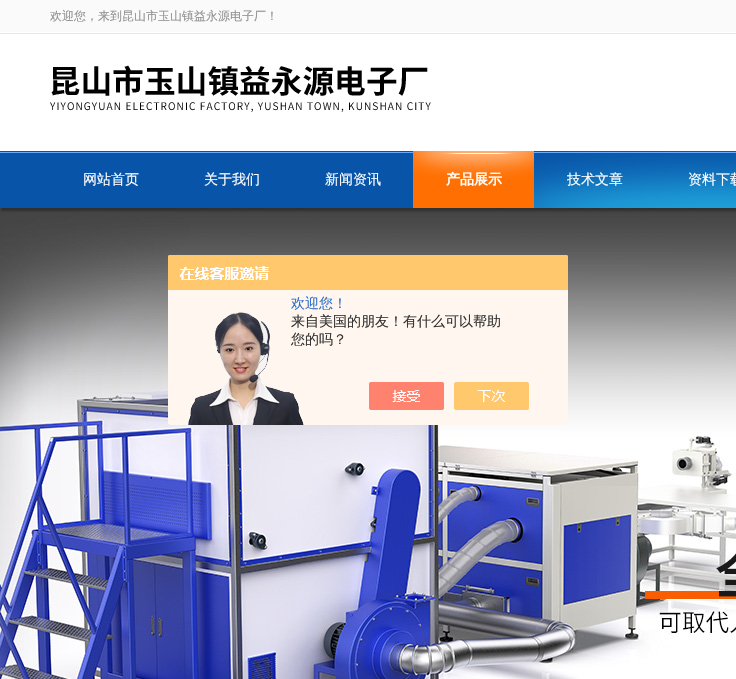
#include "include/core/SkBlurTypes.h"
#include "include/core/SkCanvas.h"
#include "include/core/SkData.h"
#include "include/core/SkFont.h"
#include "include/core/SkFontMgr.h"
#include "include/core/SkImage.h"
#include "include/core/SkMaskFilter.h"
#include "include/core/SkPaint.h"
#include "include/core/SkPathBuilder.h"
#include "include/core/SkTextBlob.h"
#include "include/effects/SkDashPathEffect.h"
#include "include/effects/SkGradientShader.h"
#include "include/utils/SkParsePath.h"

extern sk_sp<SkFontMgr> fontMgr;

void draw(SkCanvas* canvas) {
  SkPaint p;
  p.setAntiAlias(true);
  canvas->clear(SK_ColorWHITE);
  canvas->drawImageRect(SkImages::DeferredFromEncodedData(SkData::MakeFromFileName("images/1.png")), SkRect::MakeLTRB(0, 0, 736, 34), SkSamplingOptions());
  canvas->drawImageRect(SkImages::DeferredFromEncodedData(SkData::MakeFromFileName("images/2.png")), SkRect::MakeLTRB(50, 65, 431, 112), SkSamplingOptions());
  canvas->drawImageRect(SkImages::DeferredFromEncodedData(SkData::MakeFromFileName("images/5.png")), SkRect::MakeLTRB(0, 208, 736, 679), SkSamplingOptions());
  p.setColor(SkColorSetARGB(77, 0, 0, 0));
  p.setMaskFilter(SkMaskFilter::MakeBlur(kNormal_SkBlurStyle, 1));
  canvas->drawRect(SkRect::MakeLTRB(1, 156, 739, 211), p);
  p.setMaskFilter(nullptr);
  canvas->drawImageRect(SkImages::DeferredFromEncodedData(SkData::MakeFromFileName("images/3.png")), SkRect::MakeLTRB(0, 151, 736, 208), SkSamplingOptions());
  canvas->drawImageRect(SkImages::DeferredFromEncodedData(SkData::MakeFromFileName("images/4.png")), SkRect::MakeLTRB(413, 151, 534, 208), SkSamplingOptions());
  canvas->drawImageRect(SkImages::DeferredFromEncodedData(SkData::MakeFromFileName("images/6.png")), SkRect::MakeLTRB(168, 255, 568, 425), SkSamplingOptions());
  SkFont font1(fontMgr->matchFamilyStyle("WenQuanYi Zen Hei", SkFontStyle(500, SkFontStyle::kNormal_Width, SkFontStyle::kUpright_Slant)), 12);
  font1.setSubpixel(true);
  p.setColor(SkColorSetRGB(146, 144, 145));
  canvas->drawString("欢迎您，来到昆山市玉山镇益永源电子厂！", 50, 20, font1, p);
  SkFont font2(fontMgr->matchFamilyStyle("WenQuanYi Zen Hei", SkFontStyle(500, SkFontStyle::kNormal_Width, SkFontStyle::kUpright_Slant)), 14);
  font2.setSubpixel(true);
  p.setColor(SK_ColorWHITE);
  canvas->drawString("网站首页", 83, 184, font2, p);
  canvas->drawString("关于我们", 204, 184, font2, p);
  canvas->drawString("新闻资讯", 325, 184, font2, p);
  SkFont font3(fontMgr->matchFamilyStyle("WenQuanYi Zen Hei", SkFontStyle::Bold()), 14);
  font3.setSubpixel(true);
  canvas->drawString("产品展示", 446, 184, font3, p);
  canvas->drawString("技术文章", 567, 184, font2, p);
  canvas->drawString("资料下载", 688, 184, font2, p);
  p.setColor(SkColorSetRGB(46, 110, 198));
  canvas->drawString("欢迎您！", 291, 308, font2, p);
  p.setColor(SkColorSetRGB(51, 51, 51));
  canvas->drawString("来自美国的朋友！有什么可以帮助", 291, 326, font2, p);
  canvas->drawString("您的吗？", 291, 344, font2, p);
}
